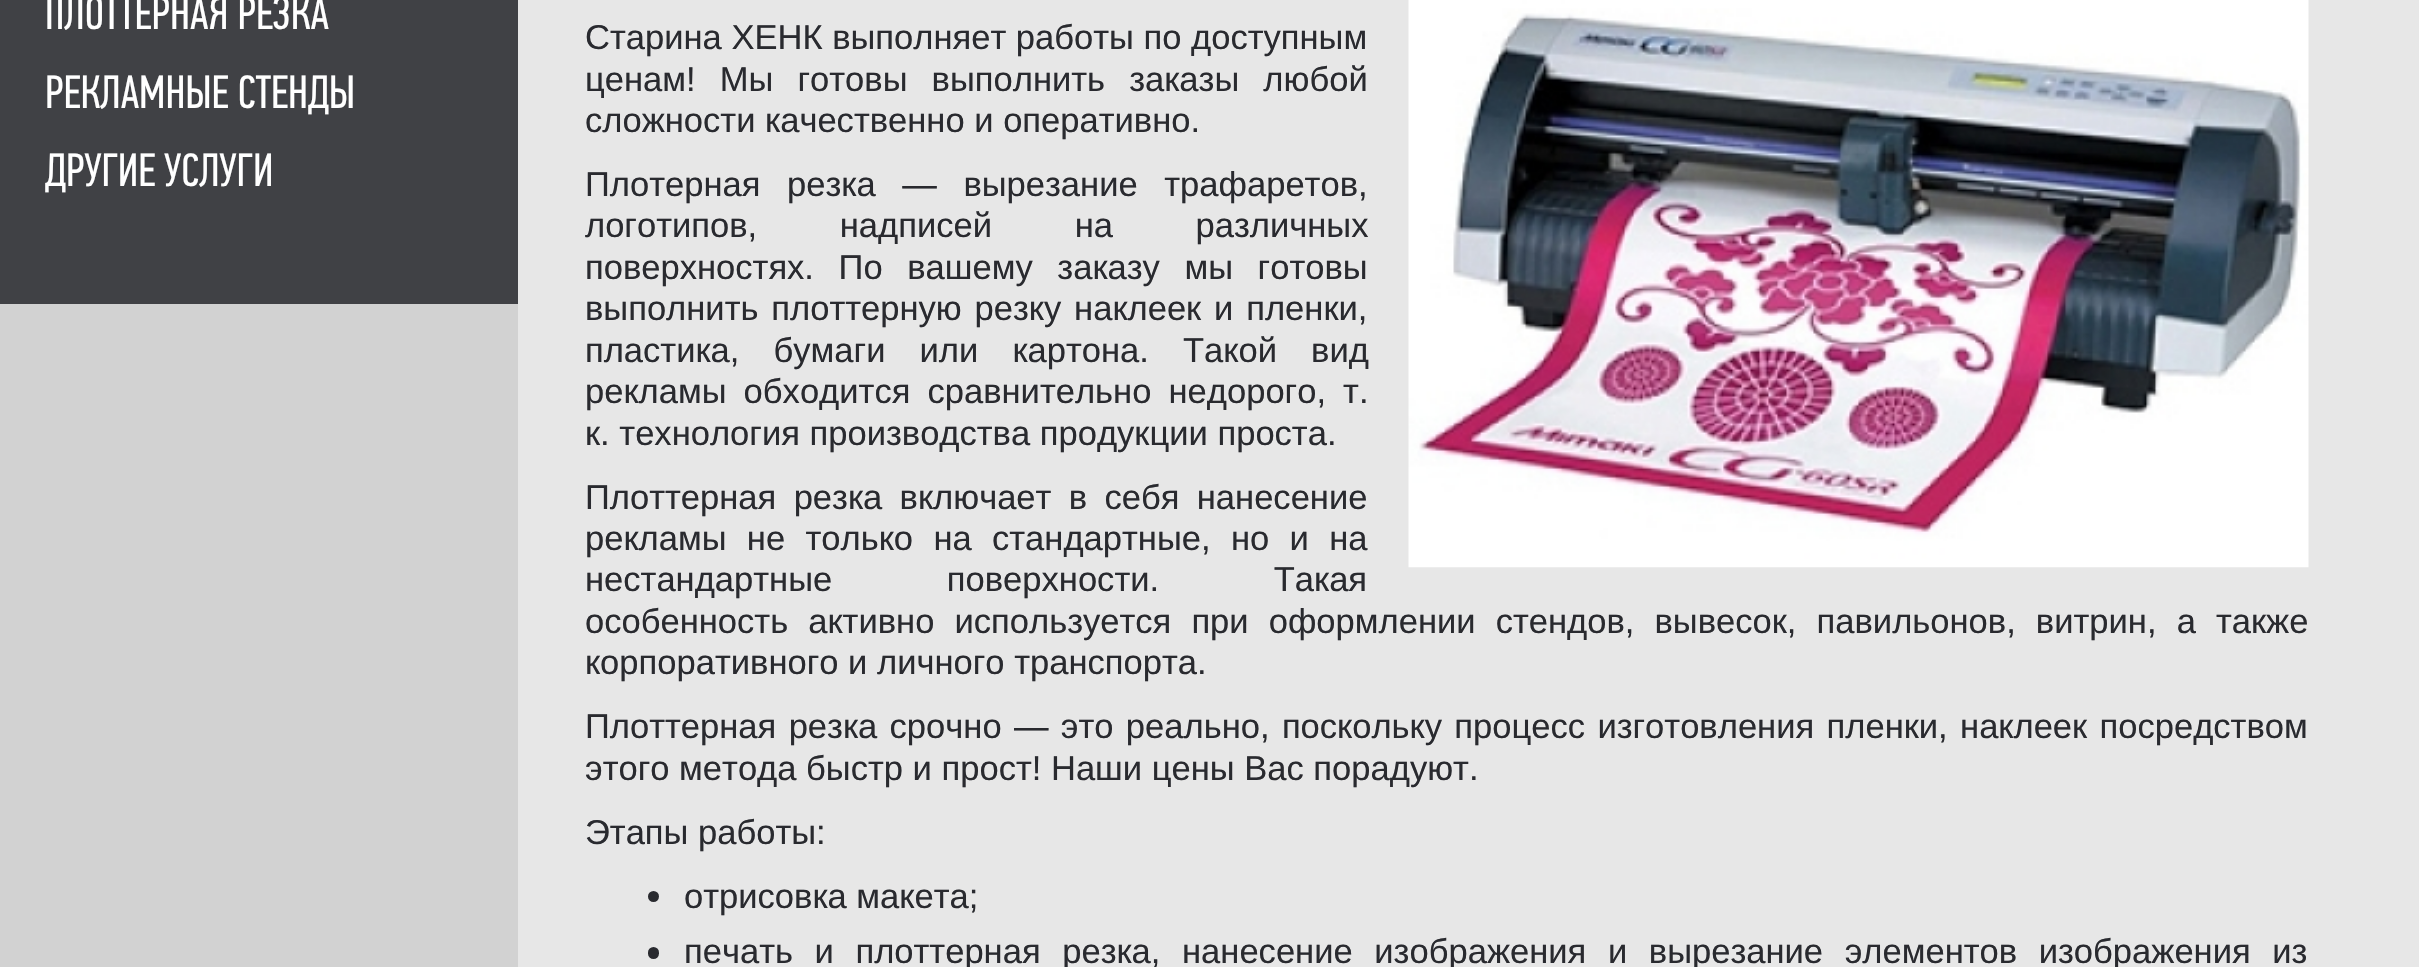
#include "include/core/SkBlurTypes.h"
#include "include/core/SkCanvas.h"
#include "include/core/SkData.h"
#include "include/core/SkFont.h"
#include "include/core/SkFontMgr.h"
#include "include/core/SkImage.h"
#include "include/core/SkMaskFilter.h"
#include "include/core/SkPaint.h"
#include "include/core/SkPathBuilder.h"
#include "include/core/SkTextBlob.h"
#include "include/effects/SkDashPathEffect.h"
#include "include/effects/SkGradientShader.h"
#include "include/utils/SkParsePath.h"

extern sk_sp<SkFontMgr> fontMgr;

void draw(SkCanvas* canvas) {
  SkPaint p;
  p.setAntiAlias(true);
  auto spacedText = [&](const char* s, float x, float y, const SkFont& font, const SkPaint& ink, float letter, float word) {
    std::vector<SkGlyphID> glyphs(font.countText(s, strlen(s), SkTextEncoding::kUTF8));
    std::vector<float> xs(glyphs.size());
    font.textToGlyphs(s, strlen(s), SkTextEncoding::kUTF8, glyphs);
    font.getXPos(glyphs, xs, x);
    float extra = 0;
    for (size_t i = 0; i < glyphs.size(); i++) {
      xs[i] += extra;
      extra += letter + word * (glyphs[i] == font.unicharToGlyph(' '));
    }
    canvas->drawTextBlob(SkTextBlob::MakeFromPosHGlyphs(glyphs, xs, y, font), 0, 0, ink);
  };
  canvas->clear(SkColorSetRGB(231, 231, 231));
  p.setColor(SkColorSetRGB(210, 210, 210));
  canvas->drawRect(SkRect::MakeLTRB(0, 304, 518, 967), p);
  p.setColor(SkColorSetRGB(64, 65, 69));
  canvas->drawRect(SkRect::MakeLTRB(0, 0, 518, 304), p);
  canvas->drawImageRect(SkImages::DeferredFromEncodedData(SkData::MakeFromFileName("images/1.png")), SkRect::MakeLTRB(1408, 0, 2309, 568), SkSamplingOptions());
  p.setColor(SkColorSetRGB(41, 42, 47));
  canvas->drawCircle(653.5f, 896.5f, 5.5f, p);
  canvas->drawRoundRect(SkRect::MakeLTRB(648, 947, 659, 959), 5.5f, 5.5f, p);
  SkFont font1(fontMgr->matchFamilyStyle("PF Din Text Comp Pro", SkFontStyle::Normal()), 46.75f);
  font1.setSubpixel(true);
  p.setColor(SK_ColorWHITE);
  canvas->drawString("ПЛОТТЕРНАЯ РЕЗКА", 45, 29, font1, p);
  canvas->drawString("РЕКЛАМНЫЕ СТЕНДЫ", 45, 108, font1, p);
  canvas->drawString("ДРУГИЕ УСЛУГИ", 45, 186, font1, p);
  SkFont font2(fontMgr->matchFamilyStyle("Liberation Sans", SkFontStyle::Normal()), 34.55f);
  font2.setSubpixel(true);
  p.setColor(SkColorSetRGB(41, 42, 47));
  canvas->drawString("Старина ХЕНК выполняет работы по доступным", 585, 49, font2, p);
  spacedText("ценам! Мы готовы выполнить заказы любой", 585, 91, font2, p, 0, 14.5f);
  canvas->drawString("сложности качественно и оперативно.", 585, 132, font2, p);
  spacedText("Плотерная резка — вырезание трафаретов,", 585, 196, font2, p, 0, 17);
  spacedText("логотипов, надписей на различных", 585, 237, font2, p, 0, 73);
  spacedText("поверхностях. По вашему заказу мы готовы", 585, 279, font2, p, 0, 15);
  spacedText("выполнить плоттерную резку наклеек и пленки,", 585, 320, font2, p, 0, 3.25f);
  spacedText("пластика, бумаги или картона. Такой вид", 585, 362, font2, p, 0, 24.5f);
  spacedText("рекламы обходится сравнительно недорого, т.", 585, 403, font2, p, 0, 7.5f);
  canvas->drawString("к. технология производства продукции проста.", 585, 445, font2, p);
  spacedText("Плоттерная резка включает в себя нанесение", 585, 509, font2, p, 0, 7.75f);
  spacedText("рекламы не только на стандартные, но и на", 585, 550, font2, p, 0, 10.75f);
  spacedText("нестандартные поверхности. Такая", 585, 591, font2, p, 0, 105);
  spacedText("особенность активно используется при оформлении стендов, вывесок, павильонов, витрин, а также", 585, 633, font2, p, 0, 10.5f);
  canvas->drawString("корпоративного и личного транспорта.", 585, 674, font2, p);
  spacedText("Плоттерная резка срочно — это реально, поскольку процесс изготовления пленки, наклеек посредством", 585, 738, font2, p, 0, 2.75f);
  canvas->drawString("этого метода быстр и прост! Наши цены Вас порадуют.", 585, 780, font2, p);
  canvas->drawString("Этапы работы:", 585, 844, font2, p);
  canvas->drawString("отрисовка макета;", 684, 908, font2, p);
  spacedText("печать и плоттерная резка, нанесение изображения и вырезание элементов изображения из", 684, 963, font2, p, 0, 12);
}
